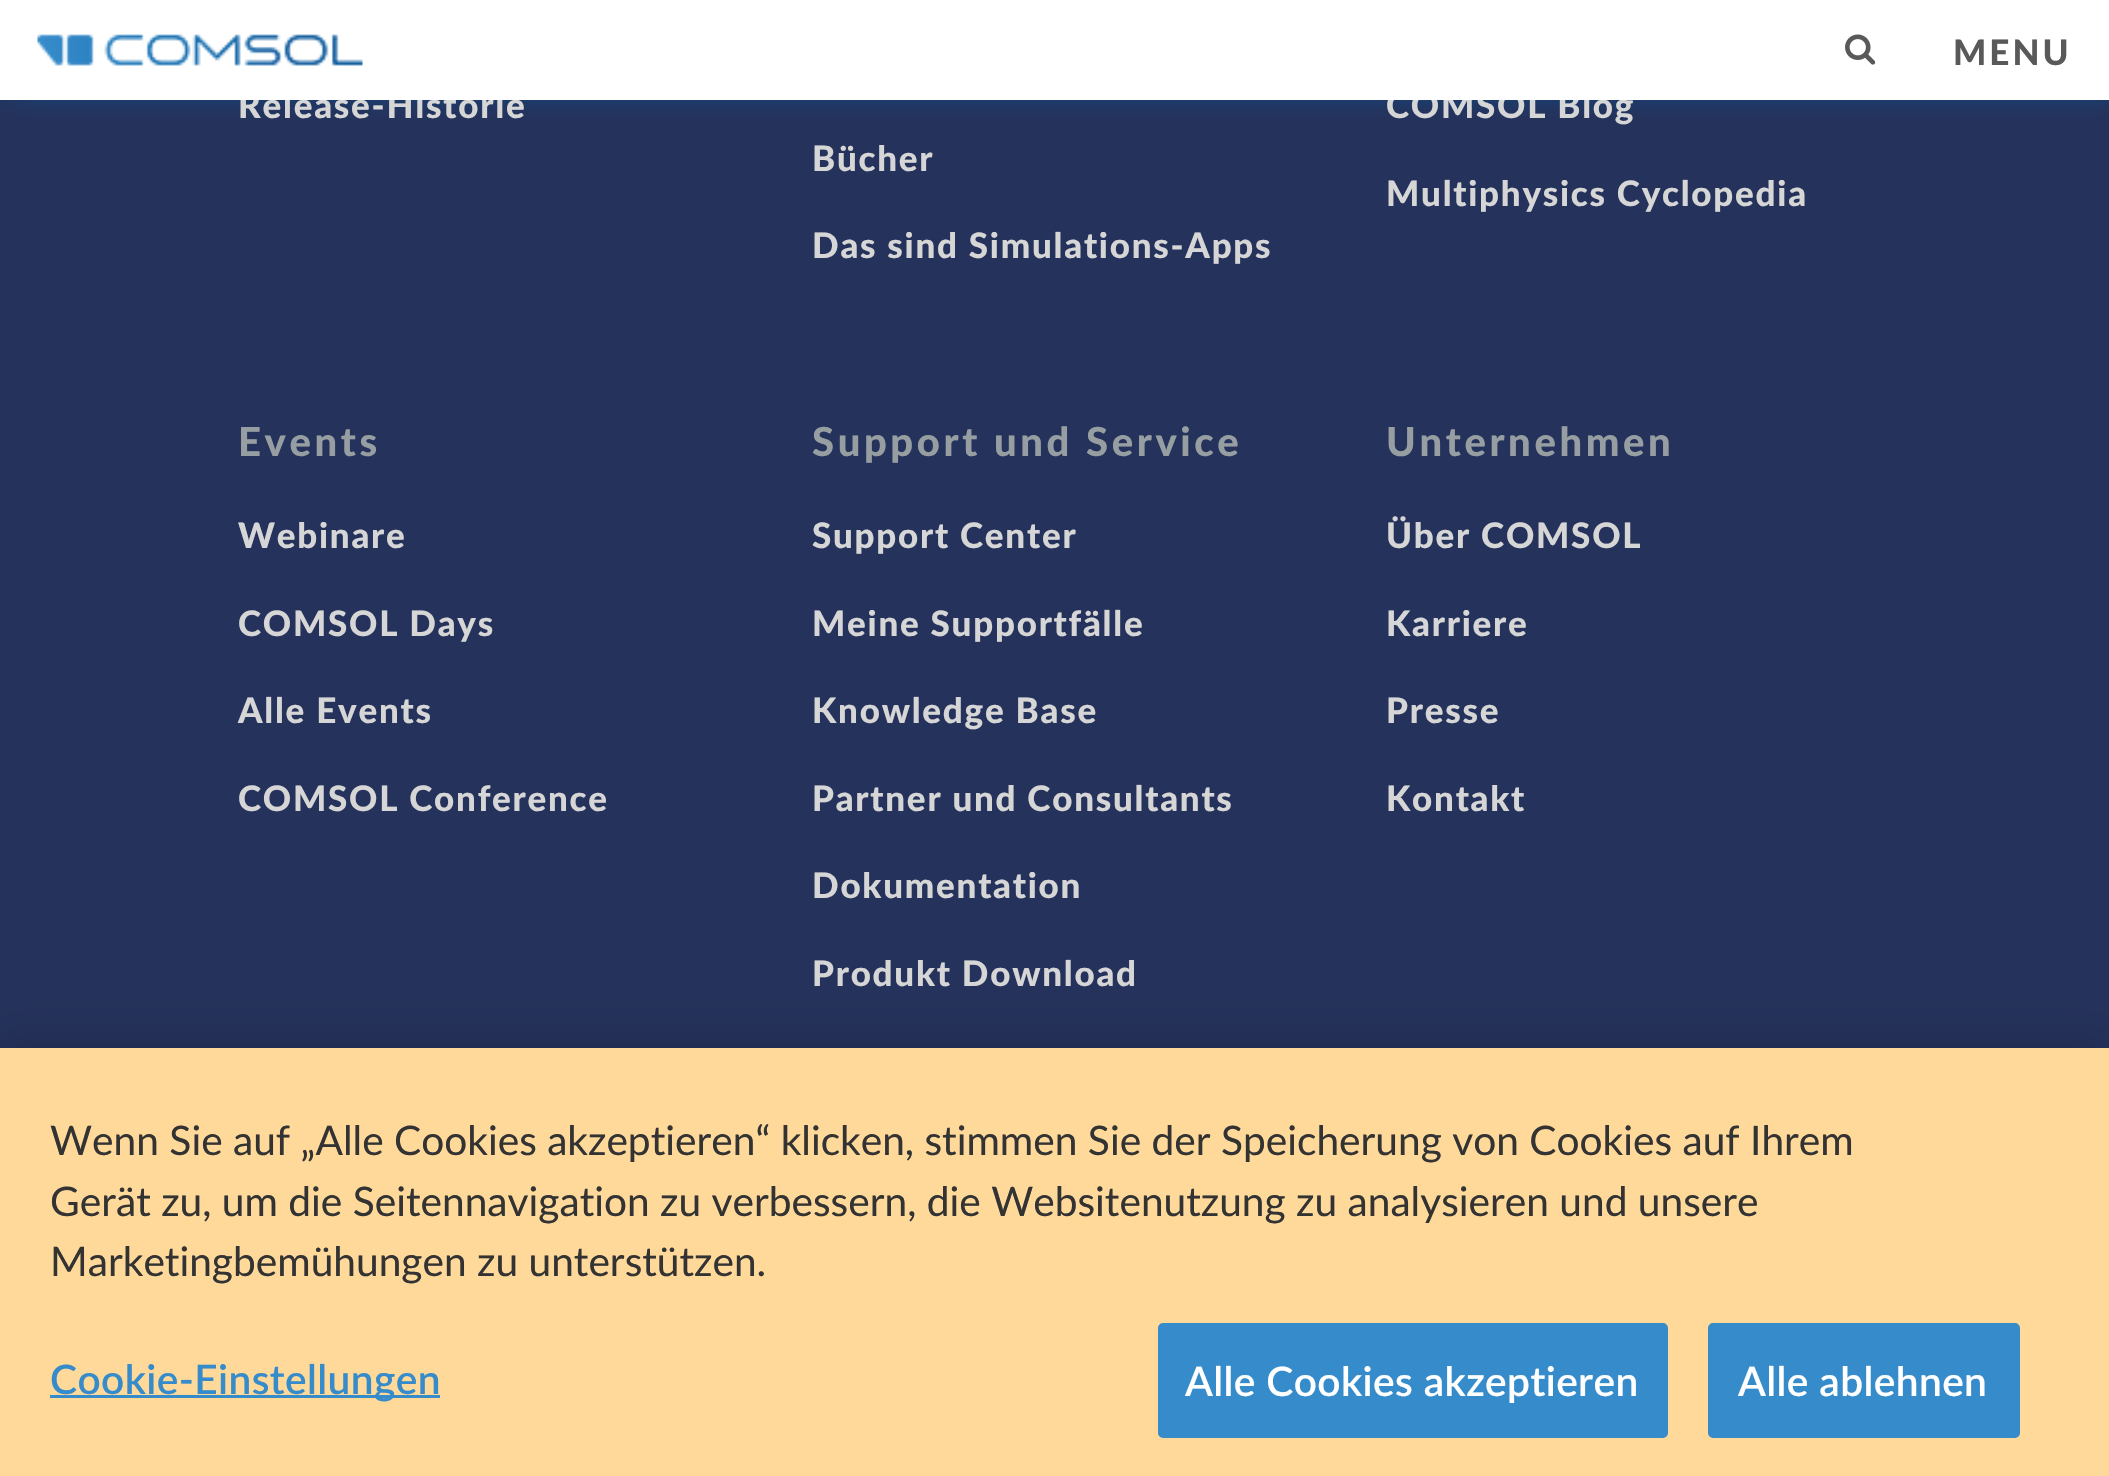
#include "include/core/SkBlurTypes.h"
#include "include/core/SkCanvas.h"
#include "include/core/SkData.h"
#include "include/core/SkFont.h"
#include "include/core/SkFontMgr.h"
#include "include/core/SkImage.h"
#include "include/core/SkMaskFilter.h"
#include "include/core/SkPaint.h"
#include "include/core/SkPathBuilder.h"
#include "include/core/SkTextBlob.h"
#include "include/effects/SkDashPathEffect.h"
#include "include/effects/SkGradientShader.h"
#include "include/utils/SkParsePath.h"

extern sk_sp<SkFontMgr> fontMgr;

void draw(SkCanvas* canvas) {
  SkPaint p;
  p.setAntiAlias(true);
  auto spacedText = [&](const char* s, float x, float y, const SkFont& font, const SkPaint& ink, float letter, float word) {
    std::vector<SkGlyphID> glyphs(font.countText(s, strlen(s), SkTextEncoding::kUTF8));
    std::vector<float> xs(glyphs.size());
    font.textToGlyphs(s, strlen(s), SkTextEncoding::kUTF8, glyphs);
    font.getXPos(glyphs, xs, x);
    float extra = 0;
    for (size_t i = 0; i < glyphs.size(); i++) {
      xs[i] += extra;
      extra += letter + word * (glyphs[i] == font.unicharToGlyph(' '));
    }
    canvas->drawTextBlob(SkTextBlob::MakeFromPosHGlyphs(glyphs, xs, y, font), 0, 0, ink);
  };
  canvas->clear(SkColorSetRGB(37, 50, 91));
  p.setColor(SkColorSetRGB(0, 85, 150));
  p.setMaskFilter(SkMaskFilter::MakeBlur(kNormal_SkBlurStyle, 14));
  canvas->drawRect(SkRect::MakeLTRB(8, -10, 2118, 90), p);
  p.setMaskFilter(nullptr);
  p.setColor(SkColorSetARGB(51, 0, 0, 0));
  p.setMaskFilter(SkMaskFilter::MakeBlur(kNormal_SkBlurStyle, 22.5f));
  canvas->drawRect(SkRect::MakeLTRB(0, 1048, 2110, 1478), p);
  p.setMaskFilter(nullptr);
  p.setColor(SkColorSetRGB(255, 217, 153));
  canvas->drawRect(SkRect::MakeLTRB(0, 1048, 2109, 1476), p);
  p.setColor(SkColorSetRGB(54, 140, 203));
  canvas->drawRect(SkRect::MakeLTRB(50, 1395, 440, 1398), p);
  canvas->drawRoundRect(SkRect::MakeLTRB(1159.5f, 1324.5f, 1666.5f, 1436.5f), 3.5f, 3.5f, p);
  p.setStyle(SkPaint::kStroke_Style);
  p.setStrokeWidth(3);
  canvas->drawRoundRect(SkRect::MakeLTRB(1159.5f, 1324.5f, 1666.5f, 1436.5f), 3.5f, 3.5f, p);
  p.setStyle(SkPaint::kFill_Style);
  canvas->drawRoundRect(SkRect::MakeLTRB(1709.5f, 1324.5f, 2018.5f, 1436.5f), 3.5f, 3.5f, p);
  p.setStyle(SkPaint::kStroke_Style);
  canvas->drawRoundRect(SkRect::MakeLTRB(1709.5f, 1324.5f, 2018.5f, 1436.5f), 3.5f, 3.5f, p);
  SkFont font1(fontMgr->matchFamilyStyle("Lato", SkFontStyle(900, SkFontStyle::kNormal_Width, SkFontStyle::kUpright_Slant)), 35);
  font1.setSubpixel(true);
  p.setStyle(SkPaint::kFill_Style);
  p.setColor(SkColorSetRGB(214, 214, 214));
  spacedText("Release-Historie", 238, 118, font1, p, 1.75f, 0);
  spacedText("Bücher", 812, 171, font1, p, 1.75f, 0);
  spacedText("Das sind Simulations-Apps", 812, 258, font1, p, 1.75f, 0);
  spacedText("COMSOL Blog", 1386, 118, font1, p, 1.75f, 0);
  p.setColor(SK_ColorWHITE);
  canvas->drawRect(SkRect::MakeLTRB(0, 0, 2109, 100), p);
  canvas->drawImageRect(SkImages::DeferredFromEncodedData(SkData::MakeFromFileName("images/1.png")), SkRect::MakeLTRB(37, 34, 363, 66), SkSamplingOptions());
  canvas->drawImageRect(SkImages::DeferredFromEncodedData(SkData::MakeFromFileName("images/2.png")), SkRect::MakeLTRB(1845, 34, 1876, 65), SkSamplingOptions());
  p.setColor(SkColorSetRGB(89, 89, 89));
  spacedText("MENU", 1953, 65, font1, p, 3, 0);
  p.setColor(SkColorSetRGB(214, 214, 214));
  spacedText("Multiphysics Cyclopedia", 1386, 206, font1, p, 1.75f, 0);
  SkFont font2(fontMgr->matchFamilyStyle("Lato", SkFontStyle(900, SkFontStyle::kNormal_Width, SkFontStyle::kUpright_Slant)), 40);
  font2.setSubpixel(true);
  p.setColor(SkColorSetRGB(151, 158, 162));
  spacedText("Events", 238, 456, font2, p, 3.6f, 0);
  p.setColor(SkColorSetRGB(214, 214, 214));
  spacedText("Webinare", 238, 548, font1, p, 1.75f, 0);
  spacedText("COMSOL Days", 238, 636, font1, p, 1.75f, 0);
  spacedText("Alle Events", 238, 723, font1, p, 1.75f, 0);
  spacedText("COMSOL Conference", 238, 811, font1, p, 1.75f, 0);
  p.setColor(SkColorSetRGB(151, 158, 162));
  spacedText("Support und Service", 812, 456, font2, p, 3.6f, 0);
  p.setColor(SkColorSetRGB(214, 214, 214));
  spacedText("Support Center", 812, 548, font1, p, 1.75f, 0);
  spacedText("Meine Supportfälle", 812, 636, font1, p, 1.75f, 0);
  spacedText("Knowledge Base", 812, 723, font1, p, 1.75f, 0);
  spacedText("Partner und Consultants", 812, 811, font1, p, 1.75f, 0);
  spacedText("Dokumentation", 812, 898, font1, p, 1.75f, 0);
  spacedText("Produkt Download", 812, 986, font1, p, 1.75f, 0);
  p.setColor(SkColorSetRGB(151, 158, 162));
  spacedText("Unternehmen", 1386, 456, font2, p, 3.6f, 0);
  p.setColor(SkColorSetRGB(214, 214, 214));
  spacedText("Über COMSOL", 1386, 548, font1, p, 1.75f, 0);
  spacedText("Karriere", 1386, 636, font1, p, 1.75f, 0);
  spacedText("Presse", 1386, 723, font1, p, 1.75f, 0);
  spacedText("Kontakt", 1386, 811, font1, p, 1.75f, 0);
  SkFont font3(fontMgr->matchFamilyStyle("Lato", SkFontStyle::Normal()), 40.65f);
  font3.setSubpixel(true);
  p.setColor(SkColorSetRGB(51, 51, 51));
  canvas->drawString("Wenn Sie auf „Alle Cookies akzeptieren“ klicken, stimmen Sie der Speicherung von Cookies auf Ihrem", 50, 1155, font3, p);
  canvas->drawString("Gerät zu, um die Seitennavigation zu verbessern, die Websitenutzung zu analysieren und unsere", 50, 1216, font3, p);
  canvas->drawString("Marketingbemühungen zu unterstützen.", 50, 1276, font3, p);
  SkFont font4(fontMgr->matchFamilyStyle("Lato", SkFontStyle(600, SkFontStyle::kNormal_Width, SkFontStyle::kUpright_Slant)), 40.65f);
  font4.setSubpixel(true);
  p.setColor(SkColorSetRGB(54, 140, 203));
  spacedText("Cookie-Einstellungen", 50, 1394, font4, p, 0.4f, 0);
  p.setColor(SK_ColorWHITE);
  spacedText("Alle Cookies akzeptieren", 1185, 1396, font4, p, 0.4f, 0);
  spacedText("Alle ablehnen", 1738, 1396, font4, p, 0.4f, 0);
}
